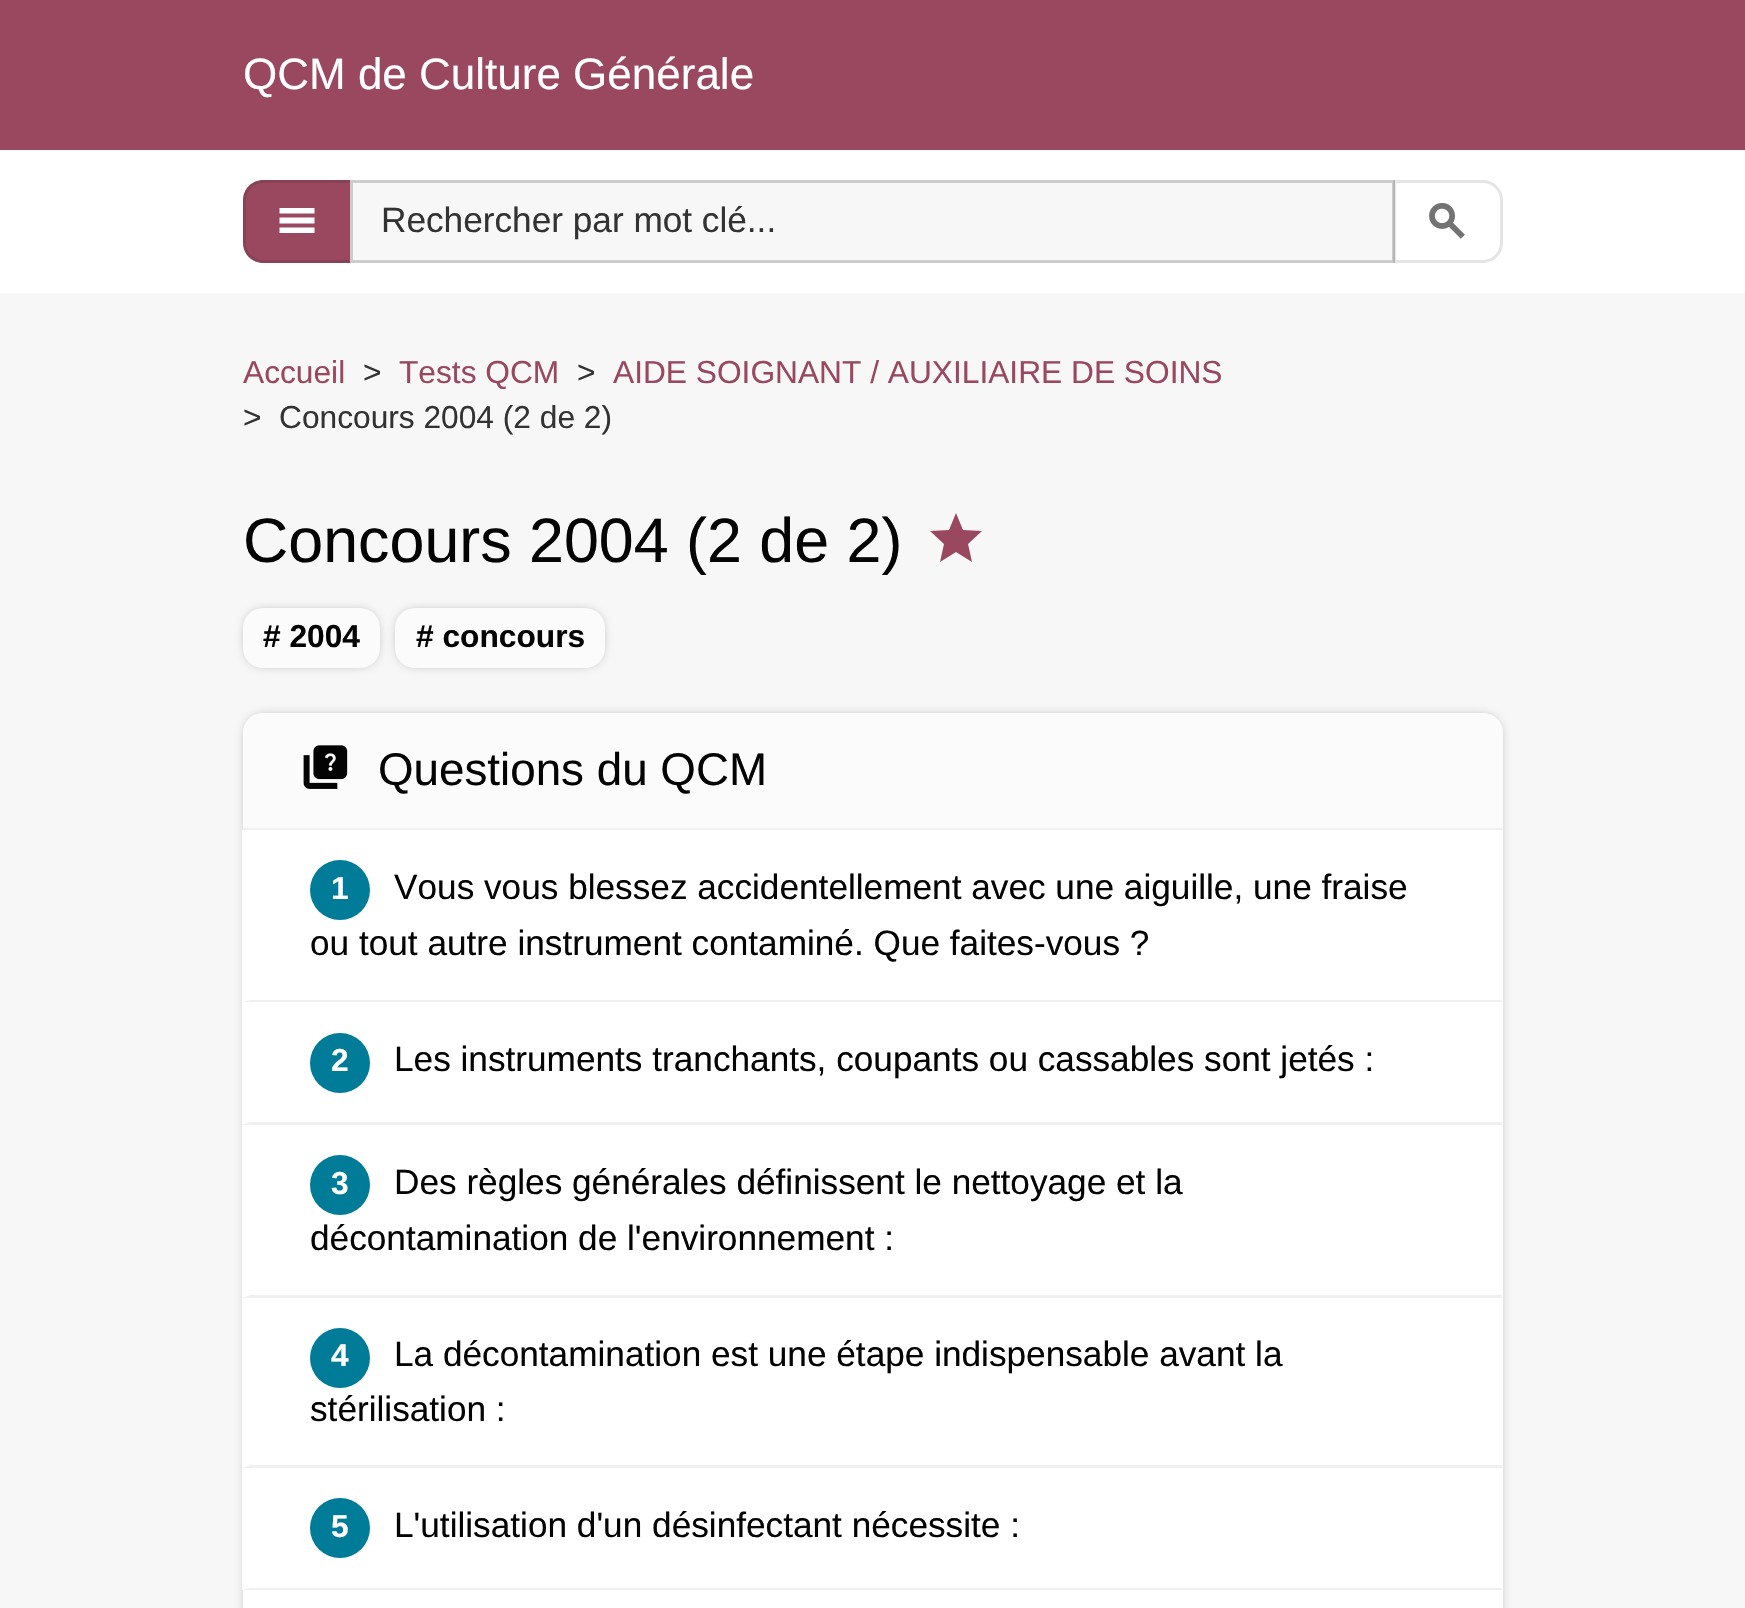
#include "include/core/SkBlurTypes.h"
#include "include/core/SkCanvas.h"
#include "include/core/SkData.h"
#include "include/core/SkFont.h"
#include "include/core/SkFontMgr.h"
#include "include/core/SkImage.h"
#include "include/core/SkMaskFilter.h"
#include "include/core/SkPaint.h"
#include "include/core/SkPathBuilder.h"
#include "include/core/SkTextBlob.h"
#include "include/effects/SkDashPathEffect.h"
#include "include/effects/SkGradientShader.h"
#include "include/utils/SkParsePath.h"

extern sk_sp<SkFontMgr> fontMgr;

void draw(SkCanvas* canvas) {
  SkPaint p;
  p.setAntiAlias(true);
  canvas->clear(SkColorSetRGB(247, 247, 247));
  p.setColor(SkColorSetRGB(153, 72, 96));
  canvas->drawRect(SkRect::MakeLTRB(0, 0, 1745, 150), p);
  p.setColor(SK_ColorWHITE);
  canvas->drawRect(SkRect::MakeLTRB(0, 150, 1745, 293), p);
  p.setColor(SkColorSetRGB(153, 72, 96));
  canvas->drawPath(SkPathBuilder().moveTo(263, 180).lineTo(353, 180).lineTo(353, 263).lineTo(263, 263).cubicTo(252, 263, 243, 254, 243, 243).lineTo(243, 200).cubicTo(243, 189, 252, 180, 263, 180).close().detach(), p);
  p.setStyle(SkPaint::kStroke_Style);
  p.setStrokeWidth(3);
  p.setColor(SkColorSetARGB(26, 0, 0, 0));
  canvas->drawPath(SkPathBuilder().moveTo(263, 181.5f).lineTo(351.5f, 181.5f).lineTo(351.5f, 261.5f).lineTo(263, 261.5f).cubicTo(253, 261.5f, 244.5f, 253, 244.5f, 243).lineTo(244.5f, 200).cubicTo(244.5f, 190, 253, 181.5f, 263, 181.5f).close().detach(), p);
  p.setStyle(SkPaint::kFill_Style);
  p.setColor(SK_ColorWHITE);
  canvas->drawPath(SkPathBuilder().moveTo(279.5f, 233).lineTo(279.5f, 227.5f).lineTo(314.5f, 227.5f).lineTo(314.5f, 233).close().moveTo(279.5f, 223.5f).lineTo(279.5f, 217.5f).lineTo(314.5f, 217.5f).lineTo(314.5f, 223.5f).close().moveTo(279.5f, 213.5f).lineTo(279.5f, 208).lineTo(314.5f, 208).lineTo(314.5f, 213.5f).close().detach(), p);
  p.setColor(SkColorSetRGB(247, 247, 247));
  canvas->drawRect(SkRect::MakeLTRB(351.5f, 181.5f, 1393.5f, 261.5f), p);
  p.setStyle(SkPaint::kStroke_Style);
  p.setColor(SkColorSetRGB(204, 204, 204));
  canvas->drawRect(SkRect::MakeLTRB(351.5f, 181.5f, 1393.5f, 261.5f), p);
  p.setColor(SkColorSetARGB(26, 0, 0, 0));
  canvas->drawPath(SkPathBuilder().moveTo(1394.5f, 181.5f).lineTo(1483, 181.5f).cubicTo(1493, 181.5f, 1501.5f, 190, 1501.5f, 200).lineTo(1501.5f, 243).cubicTo(1501.5f, 253, 1493, 261.5f, 1483, 261.5f).lineTo(1394.5f, 261.5f).close().detach(), p);
  canvas->drawImageRect(SkImages::DeferredFromEncodedData(SkData::MakeFromFileName("images/1.png")), SkRect::MakeLTRB(1429, 203, 1465, 239), SkSamplingOptions());
  p.setStyle(SkPaint::kFill_Style);
  p.setColor(SkColorSetRGB(153, 72, 96));
  canvas->drawPath(SkPathBuilder().moveTo(940, 562).lineTo(944, 544).lineTo(930, 531).lineTo(949, 530).lineTo(956, 513).lineTo(963, 530).lineTo(982, 531).lineTo(968, 544).lineTo(972, 562).lineTo(956, 552).close().detach(), p);
  p.setColor(SkColorSetRGB(128, 128, 128));
  p.setMaskFilter(SkMaskFilter::MakeBlur(kNormal_SkBlurStyle, 6));
  canvas->drawRoundRect(SkRect::MakeLTRB(248, 613, 375, 663), 15, 15, p);
  p.setMaskFilter(nullptr);
  p.setColor(SkColorSetRGB(251, 251, 251));
  canvas->drawRoundRect(SkRect::MakeLTRB(243, 608, 380, 668), 20, 20, p);
  p.setColor(SkColorSetRGB(128, 128, 128));
  p.setMaskFilter(SkMaskFilter::MakeBlur(kNormal_SkBlurStyle, 6));
  canvas->drawRoundRect(SkRect::MakeLTRB(400, 613, 600, 663), 15, 15, p);
  p.setMaskFilter(nullptr);
  p.setColor(SkColorSetRGB(251, 251, 251));
  canvas->drawRoundRect(SkRect::MakeLTRB(395, 608, 605, 668), 20, 20, p);
  p.setColor(SkColorSetRGB(128, 128, 128));
  p.setMaskFilter(SkMaskFilter::MakeBlur(kNormal_SkBlurStyle, 6));
  canvas->drawRoundRect(SkRect::MakeLTRB(248, 718, 1498, 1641), 15, 15, p);
  p.setMaskFilter(nullptr);
  p.setColor(SK_ColorWHITE);
  canvas->drawRoundRect(SkRect::MakeLTRB(243, 713, 1503, 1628), 20, 20, p);
  p.setColor(SkColorSetRGB(251, 251, 251));
  canvas->drawPath(SkPathBuilder().moveTo(263, 713).lineTo(1483, 713).cubicTo(1494, 713, 1503, 722, 1503, 733).lineTo(1503, 830).lineTo(243, 830).lineTo(243, 733).cubicTo(243, 722, 252, 713, 263, 713).close().detach(), p);
  p.setColor(SkColorSetRGB(240, 240, 240));
  canvas->drawRect(SkRect::MakeLTRB(243, 828, 1503, 830), p);
  canvas->drawImageRect(SkImages::DeferredFromEncodedData(SkData::MakeFromFileName("images/2.png")), SkRect::MakeLTRB(303, 745, 348, 789), SkSamplingOptions());
  canvas->drawPath(SkPathBuilder().moveTo(1502, 1002).lineTo(242, 1002).lineTo(250, 1000).lineTo(1502, 1000).close().detach(), p);
  p.setColor(SK_ColorWHITE);
  canvas->drawPath(SkPathBuilder().moveTo(242, 1002).lineTo(242, 830).lineTo(250, 830).lineTo(250, 1000).close().detach(), p);
  p.setColor(SkColorSetRGB(0, 124, 153));
  canvas->drawCircle(340, 890, 30, p);
  p.setColor(SkColorSetRGB(240, 240, 240));
  canvas->drawPath(SkPathBuilder().moveTo(1502, 1125).lineTo(242, 1125).lineTo(250, 1122).lineTo(1502, 1122).close().detach(), p);
  p.setColor(SK_ColorWHITE);
  canvas->drawPath(SkPathBuilder().moveTo(242, 1125).lineTo(242, 1002).lineTo(250, 1002).lineTo(250, 1122).close().detach(), p);
  p.setColor(SkColorSetRGB(0, 124, 153));
  canvas->drawCircle(340, 1063, 30, p);
  p.setColor(SkColorSetRGB(240, 240, 240));
  canvas->drawPath(SkPathBuilder().moveTo(1502, 1298).lineTo(242, 1298).lineTo(250, 1295).lineTo(1502, 1295).close().detach(), p);
  p.setColor(SK_ColorWHITE);
  canvas->drawPath(SkPathBuilder().moveTo(242, 1298).lineTo(242, 1125).lineTo(250, 1125).lineTo(250, 1295).close().detach(), p);
  p.setColor(SkColorSetRGB(0, 124, 153));
  canvas->drawCircle(340, 1185, 30, p);
  p.setColor(SkColorSetRGB(240, 240, 240));
  canvas->drawPath(SkPathBuilder().moveTo(1502, 1468).lineTo(242, 1468).lineTo(250, 1465).lineTo(1502, 1465).close().detach(), p);
  p.setColor(SK_ColorWHITE);
  canvas->drawPath(SkPathBuilder().moveTo(242, 1468).lineTo(242, 1298).lineTo(250, 1298).lineTo(250, 1465).close().detach(), p);
  p.setColor(SkColorSetRGB(0, 124, 153));
  canvas->drawCircle(340, 1358, 30, p);
  p.setColor(SkColorSetRGB(240, 240, 240));
  canvas->drawPath(SkPathBuilder().moveTo(1502, 1590).lineTo(242, 1590).lineTo(250, 1588).lineTo(1502, 1588).close().detach(), p);
  p.setColor(SK_ColorWHITE);
  canvas->drawPath(SkPathBuilder().moveTo(242, 1590).lineTo(242, 1468).lineTo(250, 1468).lineTo(250, 1588).close().detach(), p);
  p.setColor(SkColorSetRGB(0, 124, 153));
  canvas->drawCircle(340, 1528, 30, p);
  SkFont font1(fontMgr->matchFamilyStyle("Arimo", SkFontStyle::Normal()), 44);
  font1.setSubpixel(true);
  p.setColor(SK_ColorWHITE);
  canvas->drawString("QCM de Culture Générale", 243, 89, font1, p);
  SkFont font2(fontMgr->matchFamilyStyle("Arimo", SkFontStyle::Normal()), 35.2f);
  font2.setSubpixel(true);
  p.setColor(SkColorSetRGB(51, 51, 51));
  canvas->drawString("Rechercher par mot clé...", 381, 232, font2, p);
  SkFont font3(fontMgr->matchFamilyStyle("Arimo", SkFontStyle::Normal()), 31.7f);
  font3.setSubpixel(true);
  p.setColor(SkColorSetRGB(153, 72, 96));
  canvas->drawString("Accueil", 243, 383, font3, p);
  p.setColor(SkColorSetRGB(51, 51, 51));
  canvas->drawString(">", 363, 383, font3, p);
  p.setColor(SkColorSetRGB(153, 72, 96));
  canvas->drawString("Tests QCM", 399, 383, font3, p);
  p.setColor(SkColorSetRGB(51, 51, 51));
  canvas->drawString(">", 577, 383, font3, p);
  p.setColor(SkColorSetRGB(153, 72, 96));
  canvas->drawString("AIDE SOIGNANT / AUXILIAIRE DE SOINS", 613, 383, font3, p);
  p.setColor(SkColorSetRGB(51, 51, 51));
  canvas->drawString(">", 243, 428, font3, p);
  canvas->drawString("Concours 2004 (2 de 2)", 279, 428, font3, p);
  SkFont font4(fontMgr->matchFamilyStyle("Arimo", SkFontStyle::Normal()), 62.75f);
  font4.setSubpixel(true);
  p.setColor(SkColorSetRGB(4, 4, 4));
  canvas->drawString("Concours 2004 (2 de 2)", 243, 562, font4, p);
  SkFont font5(fontMgr->matchFamilyStyle("Arimo", SkFontStyle::Bold()), 31.7f);
  font5.setSubpixel(true);
  canvas->drawString("# 2004", 263, 647, font5, p);
  canvas->drawString("# concours", 416, 647, font5, p);
  SkFont font6(fontMgr->matchFamilyStyle("Arimo", SkFontStyle::Normal()), 45.75f);
  font6.setSubpixel(true);
  canvas->drawString("Questions du QCM", 378, 785, font6, p);
  p.setColor(SK_ColorWHITE);
  canvas->drawString("1", 331, 899, font5, p);
  p.setColor(SkColorSetRGB(4, 4, 4));
  canvas->drawString("Vous vous blessez accidentellement avec une aiguille, une fraise", 394, 899, font2, p);
  canvas->drawString("ou tout autre instrument contaminé. Que faites-vous ?", 310, 955, font2, p);
  p.setColor(SK_ColorWHITE);
  canvas->drawString("2", 331, 1071, font5, p);
  p.setColor(SkColorSetRGB(4, 4, 4));
  canvas->drawString("Les instruments tranchants, coupants ou cassables sont jetés :", 394, 1071, font2, p);
  p.setColor(SK_ColorWHITE);
  canvas->drawString("3", 331, 1194, font5, p);
  p.setColor(SkColorSetRGB(4, 4, 4));
  canvas->drawString("Des règles générales définissent le nettoyage et la", 394, 1194, font2, p);
  canvas->drawString("décontamination de l'environnement :", 310, 1250, font2, p);
  p.setColor(SK_ColorWHITE);
  canvas->drawString("4", 331, 1366, font5, p);
  p.setColor(SkColorSetRGB(4, 4, 4));
  canvas->drawString("La décontamination est une étape indispensable avant la", 394, 1366, font2, p);
  canvas->drawString("stérilisation :", 310, 1421, font2, p);
  p.setColor(SK_ColorWHITE);
  canvas->drawString("5", 331, 1537, font5, p);
  p.setColor(SkColorSetRGB(4, 4, 4));
  canvas->drawString("L'utilisation d'un désinfectant nécessite :", 394, 1537, font2, p);
}
